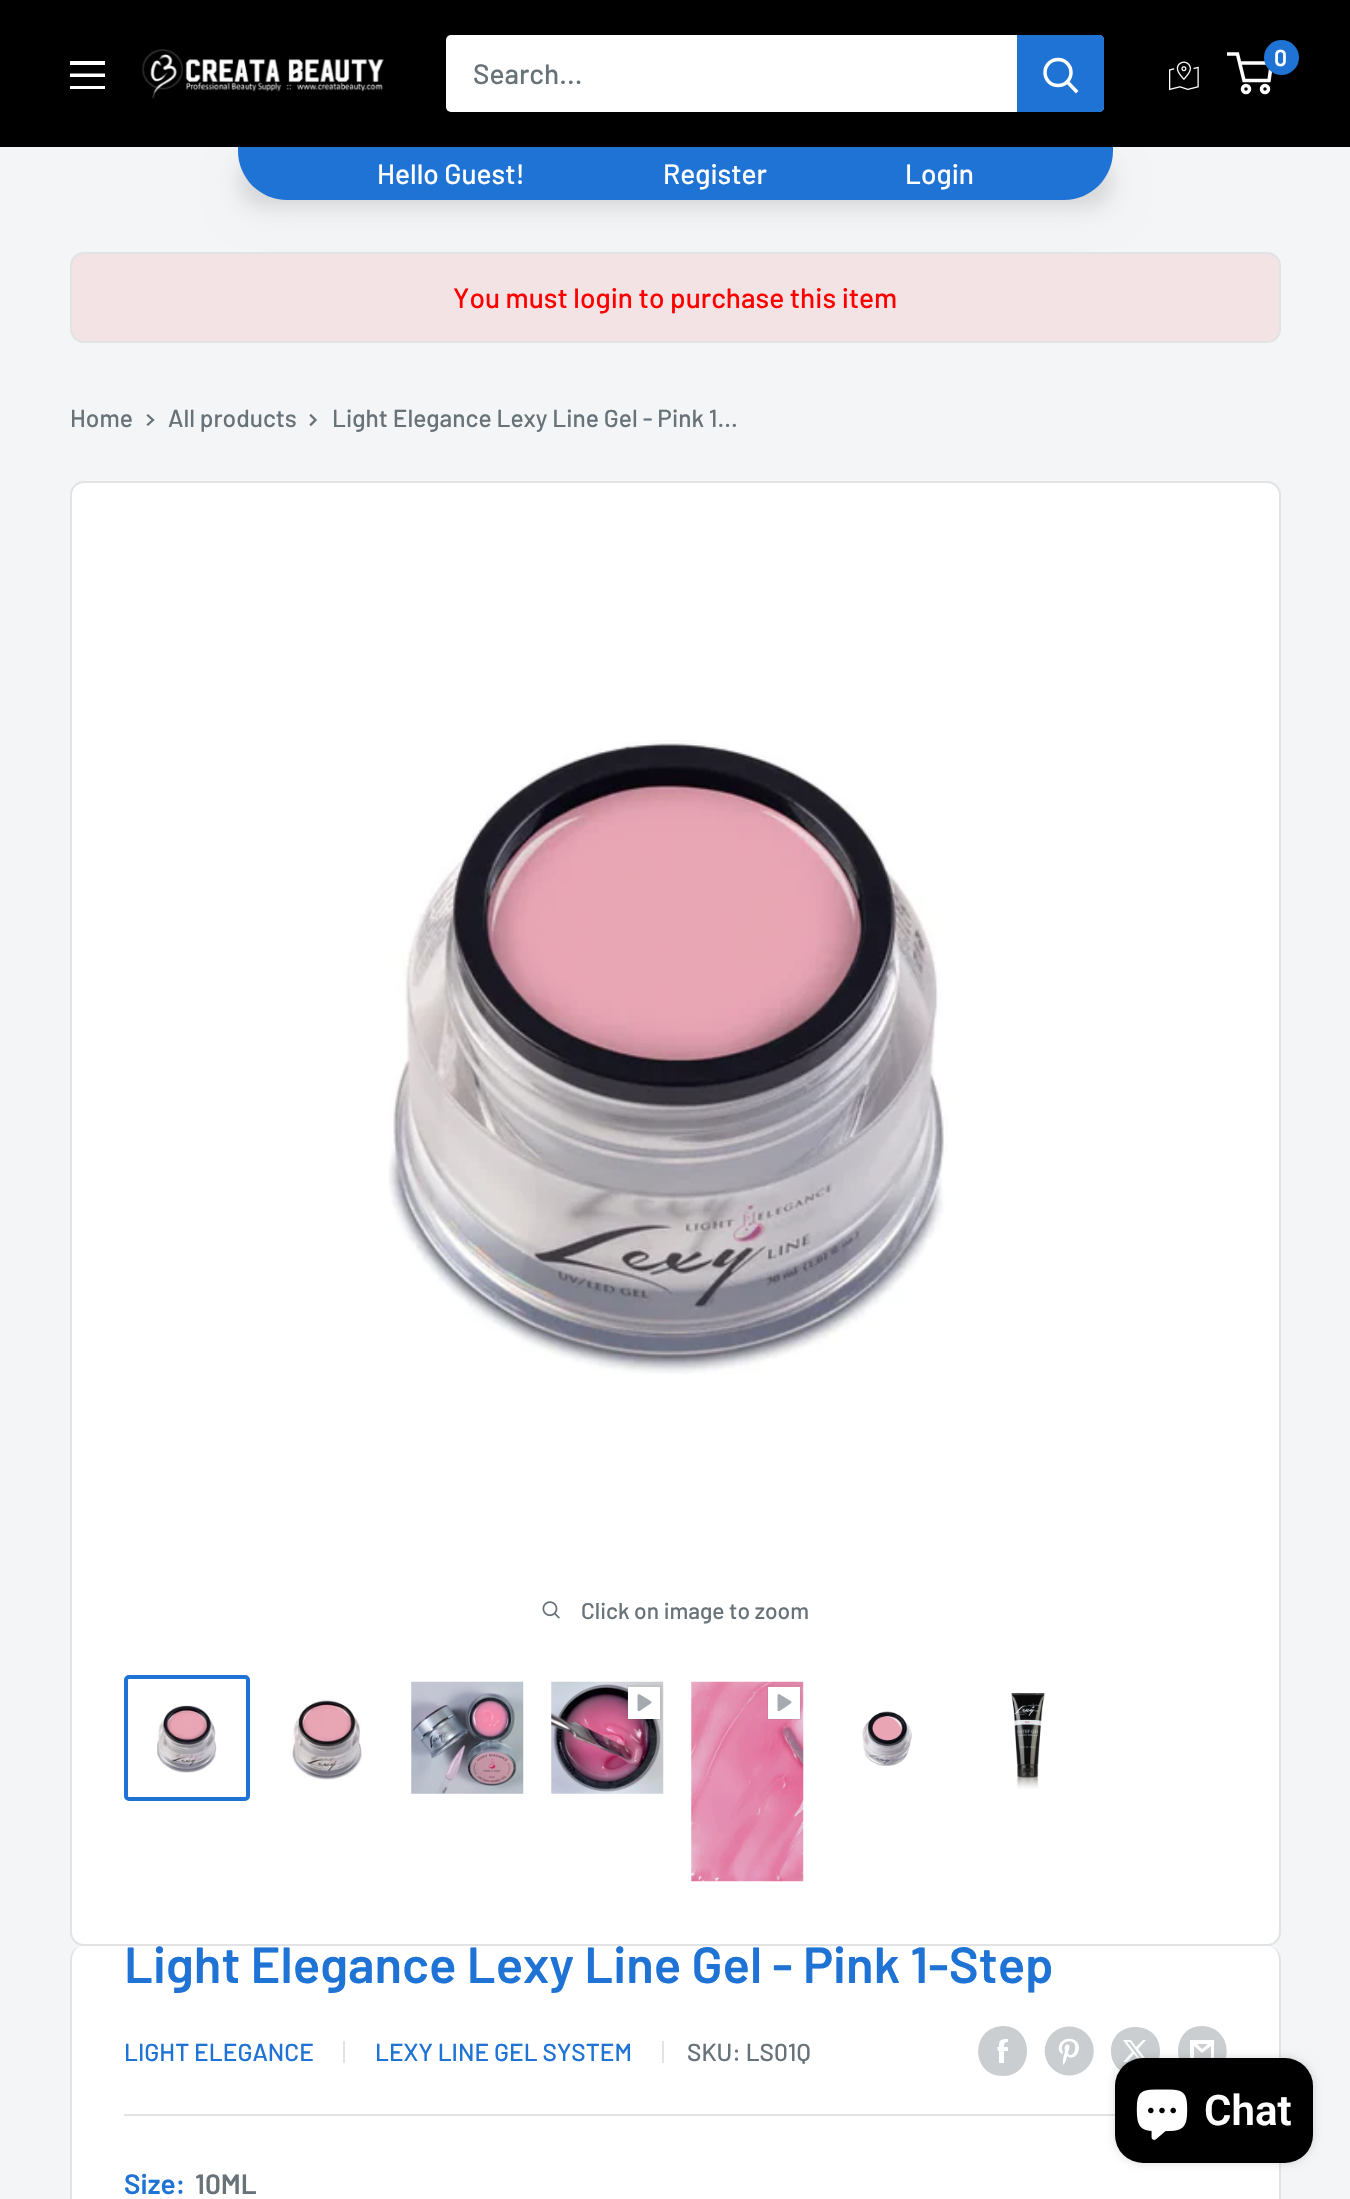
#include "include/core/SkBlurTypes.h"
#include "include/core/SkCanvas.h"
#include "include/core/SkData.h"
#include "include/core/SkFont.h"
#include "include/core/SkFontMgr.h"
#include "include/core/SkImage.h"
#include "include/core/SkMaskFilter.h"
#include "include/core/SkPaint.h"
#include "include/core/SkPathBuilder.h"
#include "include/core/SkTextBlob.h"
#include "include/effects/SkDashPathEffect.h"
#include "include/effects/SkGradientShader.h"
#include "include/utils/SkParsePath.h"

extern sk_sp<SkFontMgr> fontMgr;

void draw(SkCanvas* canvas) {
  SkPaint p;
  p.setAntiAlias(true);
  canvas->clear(SkColorSetRGB(243, 245, 246));
  p.setColor(SkColorSetARGB(13, 0, 0, 0));
  p.setMaskFilter(SkMaskFilter::MakeBlur(kNormal_SkBlurStyle, 17.5f));
  canvas->drawRoundRect(SkRect::MakeLTRB(238, 158, 1113, 210), 49, 49, p);
  p.setMaskFilter(nullptr);
  p.setColor(SkColorSetARGB(18, 0, 0, 0));
  p.setMaskFilter(SkMaskFilter::MakeBlur(kNormal_SkBlurStyle, 7));
  canvas->drawRoundRect(SkRect::MakeLTRB(238, 154, 1113, 207), 49, 49, p);
  p.setMaskFilter(nullptr);
  p.setColor(SK_ColorBLACK);
  canvas->drawRect(SkRect::MakeLTRB(0, 0, 1350, 147), p);
  canvas->drawImageRect(SkImages::DeferredFromEncodedData(SkData::MakeFromFileName("images/1.png")), SkRect::MakeLTRB(142, 49, 384, 99), SkSamplingOptions());
  p.setStyle(SkPaint::kStroke_Style);
  p.setStrokeWidth(3.5f);
  p.setColor(SK_ColorWHITE);
  canvas->drawCircle(1246, 89, 3.5f, p);
  canvas->drawCircle(1265, 89, 3.5f, p);
  canvas->drawPath(SkPathBuilder().moveTo(1239.5f, 63).lineTo(1271.5f, 63).lineTo(1269, 80.5f).lineTo(1244, 80.5f).lineTo(1237.5f, 54).lineTo(1227, 54).detach(), p);
  p.setStyle(SkPaint::kFill_Style);
  p.setColor(SkColorSetRGB(31, 115, 212));
  canvas->drawCircle(1281.5f, 57.5f, 17.5f, p);
  canvas->drawImageRect(SkImages::DeferredFromEncodedData(SkData::MakeFromFileName("images/2.png")), SkRect::MakeLTRB(1169, 61, 1199, 91), SkSamplingOptions());
  p.setColor(SK_ColorWHITE);
  canvas->drawPath(SkPathBuilder(SkPathFillType::kEvenOdd).moveTo(70, 86).lineTo(105, 86).lineTo(105, 89).lineTo(70, 89).close().moveTo(70, 61).lineTo(105, 61).lineTo(105, 65).lineTo(70, 65).close().moveTo(70, 73.5f).lineTo(105, 73.5f).lineTo(105, 77).lineTo(70, 77).close().detach(), p);
  canvas->drawRoundRect(SkRect::MakeLTRB(446, 35, 1104, 112), 5, 5, p);
  p.setColor(SkColorSetRGB(31, 115, 212));
  canvas->drawPath(SkPathBuilder().moveTo(1017, 35).lineTo(1099, 35).cubicTo(1102, 35, 1104, 37, 1104, 40).lineTo(1104, 107).cubicTo(1104, 110, 1102, 112, 1099, 112).lineTo(1017, 112).close().detach(), p);
  p.setStyle(SkPaint::kStroke_Style);
  p.setStrokeCap(SkPaint::kSquare_Cap);
  p.setColor(SK_ColorWHITE);
  canvas->drawPath(SkPathBuilder().moveTo(1076, 91).lineTo(1067.5f, 82).detach(), p);
  p.setStrokeCap(SkPaint::kButt_Cap);
  canvas->drawCircle(1058, 72.5f, 13, p);
  p.setStyle(SkPaint::kFill_Style);
  p.setColor(SkColorSetRGB(31, 115, 212));
  canvas->drawPath(SkPathBuilder().moveTo(238, 147).lineTo(1113, 147).lineTo(1113, 151).cubicTo(1113, 178, 1091, 200, 1064, 200).lineTo(287, 200).cubicTo(260, 200, 238, 178, 238, 151).close().detach(), p);
  p.setColor(SkColorSetRGB(244, 227, 229));
  canvas->drawRoundRect(SkRect::MakeLTRB(71, 253, 1280, 342), 13, 13, p);
  p.setStyle(SkPaint::kStroke_Style);
  p.setStrokeWidth(2);
  p.setColor(SkColorSetRGB(225, 227, 228));
  canvas->drawRoundRect(SkRect::MakeLTRB(71, 253, 1280, 342), 13, 13, p);
  p.setStrokeWidth(2.3f);
  p.setStrokeCap(SkPaint::kSquare_Cap);
  p.setColor(SkColorSetRGB(103, 114, 121));
  canvas->drawPath(SkPathBuilder().moveTo(148, 415.5f).lineTo(153, 420).lineTo(148, 424.5f).detach(), p);
  canvas->drawPath(SkPathBuilder().moveTo(311, 415.5f).lineTo(315.5f, 420).lineTo(311, 424.5f).detach(), p);
  p.setStyle(SkPaint::kFill_Style);
  p.setColor(SK_ColorWHITE);
  canvas->drawRoundRect(SkRect::MakeLTRB(71, 482, 1280, 1945), 13, 13, p);
  p.setStyle(SkPaint::kStroke_Style);
  p.setStrokeWidth(2);
  p.setStrokeCap(SkPaint::kButt_Cap);
  p.setColor(SkColorSetRGB(225, 227, 228));
  canvas->drawRoundRect(SkRect::MakeLTRB(71, 482, 1280, 1945), 13, 13, p);
  canvas->drawImageRect(SkImages::DeferredFromEncodedData(SkData::MakeFromFileName("images/3.png")), SkRect::MakeLTRB(388, 740, 948, 1374), SkSamplingOptions());
  canvas->drawImageRect(SkImages::DeferredFromEncodedData(SkData::MakeFromFileName("images/4.png")), SkRect::MakeLTRB(542, 1601, 560, 1619), SkSamplingOptions());
  p.setStrokeWidth(4);
  p.setColor(SkColorSetRGB(31, 115, 212));
  canvas->drawRoundRect(SkRect::MakeLTRB(126, 1677, 248, 1799), 3, 3, p);
  canvas->drawImageRect(SkImages::DeferredFromEncodedData(SkData::MakeFromFileName("images/5.png")), SkRect::MakeLTRB(156, 1705, 217, 1773), SkSamplingOptions());
  canvas->drawImageRect(SkImages::DeferredFromEncodedData(SkData::MakeFromFileName("images/6.png")), SkRect::MakeLTRB(292, 1699, 362, 1780), SkSamplingOptions());
  canvas->drawImageRect(SkImages::DeferredFromEncodedData(SkData::MakeFromFileName("images/7.png")), SkRect::MakeLTRB(411, 1681, 524, 1794), SkSamplingOptions());
  canvas->drawImageRect(SkImages::DeferredFromEncodedData(SkData::MakeFromFileName("images/8.png")), SkRect::MakeLTRB(551, 1681, 664, 1794), SkSamplingOptions());
  canvas->drawImageRect(SkImages::DeferredFromEncodedData(SkData::MakeFromFileName("images/9.png")), SkRect::MakeLTRB(627, 1685, 662, 1720), SkSamplingOptions());
  canvas->drawImageRect(SkImages::DeferredFromEncodedData(SkData::MakeFromFileName("images/10.png")), SkRect::MakeLTRB(691, 1681, 804, 1882), SkSamplingOptions());
  canvas->drawImageRect(SkImages::DeferredFromEncodedData(SkData::MakeFromFileName("images/11.png")), SkRect::MakeLTRB(767, 1685, 802, 1720), SkSamplingOptions());
  canvas->drawImageRect(SkImages::DeferredFromEncodedData(SkData::MakeFromFileName("images/12.png")), SkRect::MakeLTRB(862, 1711, 912, 1766), SkSamplingOptions());
  canvas->drawImageRect(SkImages::DeferredFromEncodedData(SkData::MakeFromFileName("images/13.png")), SkRect::MakeLTRB(1011, 1693, 1045, 1789), SkSamplingOptions());
  p.setStyle(SkPaint::kFill_Style);
  p.setColor(SK_ColorWHITE);
  canvas->drawRoundRect(SkRect::MakeLTRB(70, 1946, 1281, 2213), 14, 14, p);
  p.setColor(SkColorSetRGB(225, 227, 228));
  canvas->drawPath(SkPathBuilder(SkPathFillType::kEvenOdd).moveTo(84, 1946).lineTo(1267, 1946).cubicTo(1275, 1946, 1281, 1952, 1281, 1960).lineTo(1281, 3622).cubicTo(1281, 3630, 1275, 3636, 1267, 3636).lineTo(84, 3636).cubicTo(76, 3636, 70, 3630, 70, 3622).lineTo(70, 1960).cubicTo(70, 1952, 76, 1946, 84, 1946).close().moveTo(84, 1946).lineTo(1267, 1946).cubicTo(1274, 1946, 1279, 1952, 1279, 1960).lineTo(1279, 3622).cubicTo(1279, 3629, 1274, 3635, 1267, 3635).lineTo(84, 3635).cubicTo(77, 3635, 72, 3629, 72, 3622).lineTo(72, 1960).cubicTo(72, 1952, 77, 1946, 84, 1946).close().detach(), p);
  canvas->drawRect(SkRect::MakeLTRB(343, 2041, 345, 2063), p);
  canvas->drawRect(SkRect::MakeLTRB(662, 2041, 664, 2063), p);
  p.setColor(SkColorSetRGB(202, 206, 208));
  canvas->drawPath(SkPathBuilder(SkPathFillType::kEvenOdd).moveTo(1003, 2076).cubicTo(970, 2076, 970, 2027, 1003, 2026).cubicTo(1035, 2026, 1035, 2076, 1003, 2076).close().moveTo(1008, 2047).lineTo(1004, 2047).cubicTo(1004, 2044, 1004, 2042, 1008, 2042).lineTo(1008, 2039).cubicTo(1000, 2039, 999, 2040, 999, 2047).lineTo(997, 2047).lineTo(998, 2051).lineTo(999, 2051).lineTo(999, 2063).lineTo(1004, 2063).lineTo(1004, 2051).lineTo(1008, 2051).close().detach(), p);
  canvas->drawImageRect(SkImages::DeferredFromEncodedData(SkData::MakeFromFileName("images/14.png")), SkRect::MakeLTRB(1044, 2026, 1094, 2076), SkSamplingOptions());
  canvas->drawPath(SkPathBuilder(SkPathFillType::kEvenOdd).moveTo(1160, 2051).cubicTo(1160, 2083, 1111, 2083, 1111, 2051).cubicTo(1111, 2019, 1160, 2019, 1160, 2051).close().moveTo(1146, 2040).lineTo(1143, 2040).lineTo(1136, 2047).lineTo(1131, 2040).lineTo(1123, 2040).lineTo(1132, 2052).lineTo(1123, 2062).lineTo(1127, 2062).lineTo(1134, 2054).lineTo(1140, 2062).lineTo(1148, 2062).lineTo(1138, 2049).close().moveTo(1143, 2060).lineTo(1141, 2060).lineTo(1127, 2042).lineTo(1130, 2042).close().detach(), p);
  canvas->drawPath(SkPathBuilder().moveTo(1202, 2076).cubicTo(1170, 2076, 1170, 2026, 1202, 2026).cubicTo(1235, 2027, 1235, 2076, 1202, 2076).close().moveTo(1197, 2044).lineTo(1208, 2044).lineTo(1202, 2049).close().moveTo(1211, 2046).lineTo(1211, 2058).lineTo(1194, 2058).lineTo(1194, 2046).lineTo(1202, 2053).close().moveTo(1214, 2040).lineTo(1190, 2040).lineTo(1190, 2062).lineTo(1214, 2062).close().detach(), p);
  p.setColor(SkColorSetRGB(225, 227, 228));
  canvas->drawRect(SkRect::MakeLTRB(124, 2114, 1115, 2116), p);
  p.setColor(SkColorSetARGB(38, 0, 0, 0));
  p.setMaskFilter(SkMaskFilter::MakeBlur(kNormal_SkBlurStyle, 4.5f));
  canvas->drawRoundRect(SkRect::MakeLTRB(1115, 2058, 1313, 2163), 28, 28, p);
  p.setMaskFilter(nullptr);
  p.setColor(SK_ColorBLACK);
  canvas->drawRoundRect(SkRect::MakeLTRB(1115, 2058, 1313, 2163), 28, 28, p);
  canvas->drawImageRect(SkImages::DeferredFromEncodedData(SkData::MakeFromFileName("images/15.png")), SkRect::MakeLTRB(1136, 2089, 1188, 2140), SkSamplingOptions());
  SkFont font1(fontMgr->matchFamilyStyle("Barlow", SkFontStyle(600, SkFontStyle::kNormal_Width, SkFontStyle::kUpright_Slant)), 23);
  font1.setSubpixel(true);
  p.setColor(SK_ColorWHITE);
  canvas->drawString("0", 1274, 66, font1, p);
  SkFont font2(fontMgr->matchFamilyStyle("Barlow", SkFontStyle(500, SkFontStyle::kNormal_Width, SkFontStyle::kUpright_Slant)), 28);
  font2.setSubpixel(true);
  p.setColor(SkColorSetRGB(103, 114, 121));
  canvas->drawString("Search...", 473, 84, font2, p);
  p.setColor(SK_ColorWHITE);
  canvas->drawString("Hello Guest!", 377, 184, font2, p);
  canvas->drawString("Register", 663, 184, font2, p);
  canvas->drawString("Login", 905, 184, font2, p);
  p.setColor(SkColorSetRGB(255, 0, 0));
  canvas->drawString("You must login to purchase this item", 453, 308, font2, p);
  SkFont font3(fontMgr->matchFamilyStyle("Barlow", SkFontStyle(500, SkFontStyle::kNormal_Width, SkFontStyle::kUpright_Slant)), 24.5f);
  font3.setSubpixel(true);
  p.setColor(SkColorSetRGB(103, 114, 121));
  canvas->drawString("Home", 70, 427, font3, p);
  canvas->drawString("All products", 168, 427, font3, p);
  canvas->drawString("Light Elegance Lexy Line Gel - Pink 1...", 332, 427, font3, p);
  SkFont font4(fontMgr->matchFamilyStyle("Barlow", SkFontStyle(500, SkFontStyle::kNormal_Width, SkFontStyle::kUpright_Slant)), 22.75f);
  font4.setSubpixel(true);
  canvas->drawString("Click on image to zoom", 581, 1619, font4, p);
  SkFont font5(fontMgr->matchFamilyStyle("Barlow", SkFontStyle(600, SkFontStyle::kNormal_Width, SkFontStyle::kUpright_Slant)), 50.75f);
  font5.setSubpixel(true);
  p.setColor(SkColorSetRGB(31, 115, 212));
  canvas->drawString("Light Elegance Lexy Line Gel - Pink 1-Step", 124, 1983, font5, p);
  canvas->drawString("LIGHT ELEGANCE", 124, 2061, font3, p);
  canvas->drawString("LEXY LINE GEL SYSTEM", 375, 2061, font3, p);
  p.setColor(SkColorSetRGB(103, 114, 121));
  canvas->drawString("SKU: LS01Q", 687, 2061, font3, p);
  SkFont font6(fontMgr->matchFamilyStyle("Barlow", SkFontStyle(600, SkFontStyle::kNormal_Width, SkFontStyle::kUpright_Slant)), 28);
  font6.setSubpixel(true);
  p.setColor(SkColorSetRGB(31, 115, 212));
  canvas->drawString("Size:", 124, 2194, font6, p);
  p.setColor(SkColorSetRGB(103, 114, 121));
  canvas->drawString("10ML", 195, 2194, font6, p);
  SkFont font7(fontMgr->matchFamilyStyle("Roboto", SkFontStyle(600, SkFontStyle::kNormal_Width, SkFontStyle::kUpright_Slant)), 42);
  font7.setSubpixel(true);
  p.setColor(SK_ColorWHITE);
  canvas->drawString("Chat", 1204, 2125, font7, p);
}
